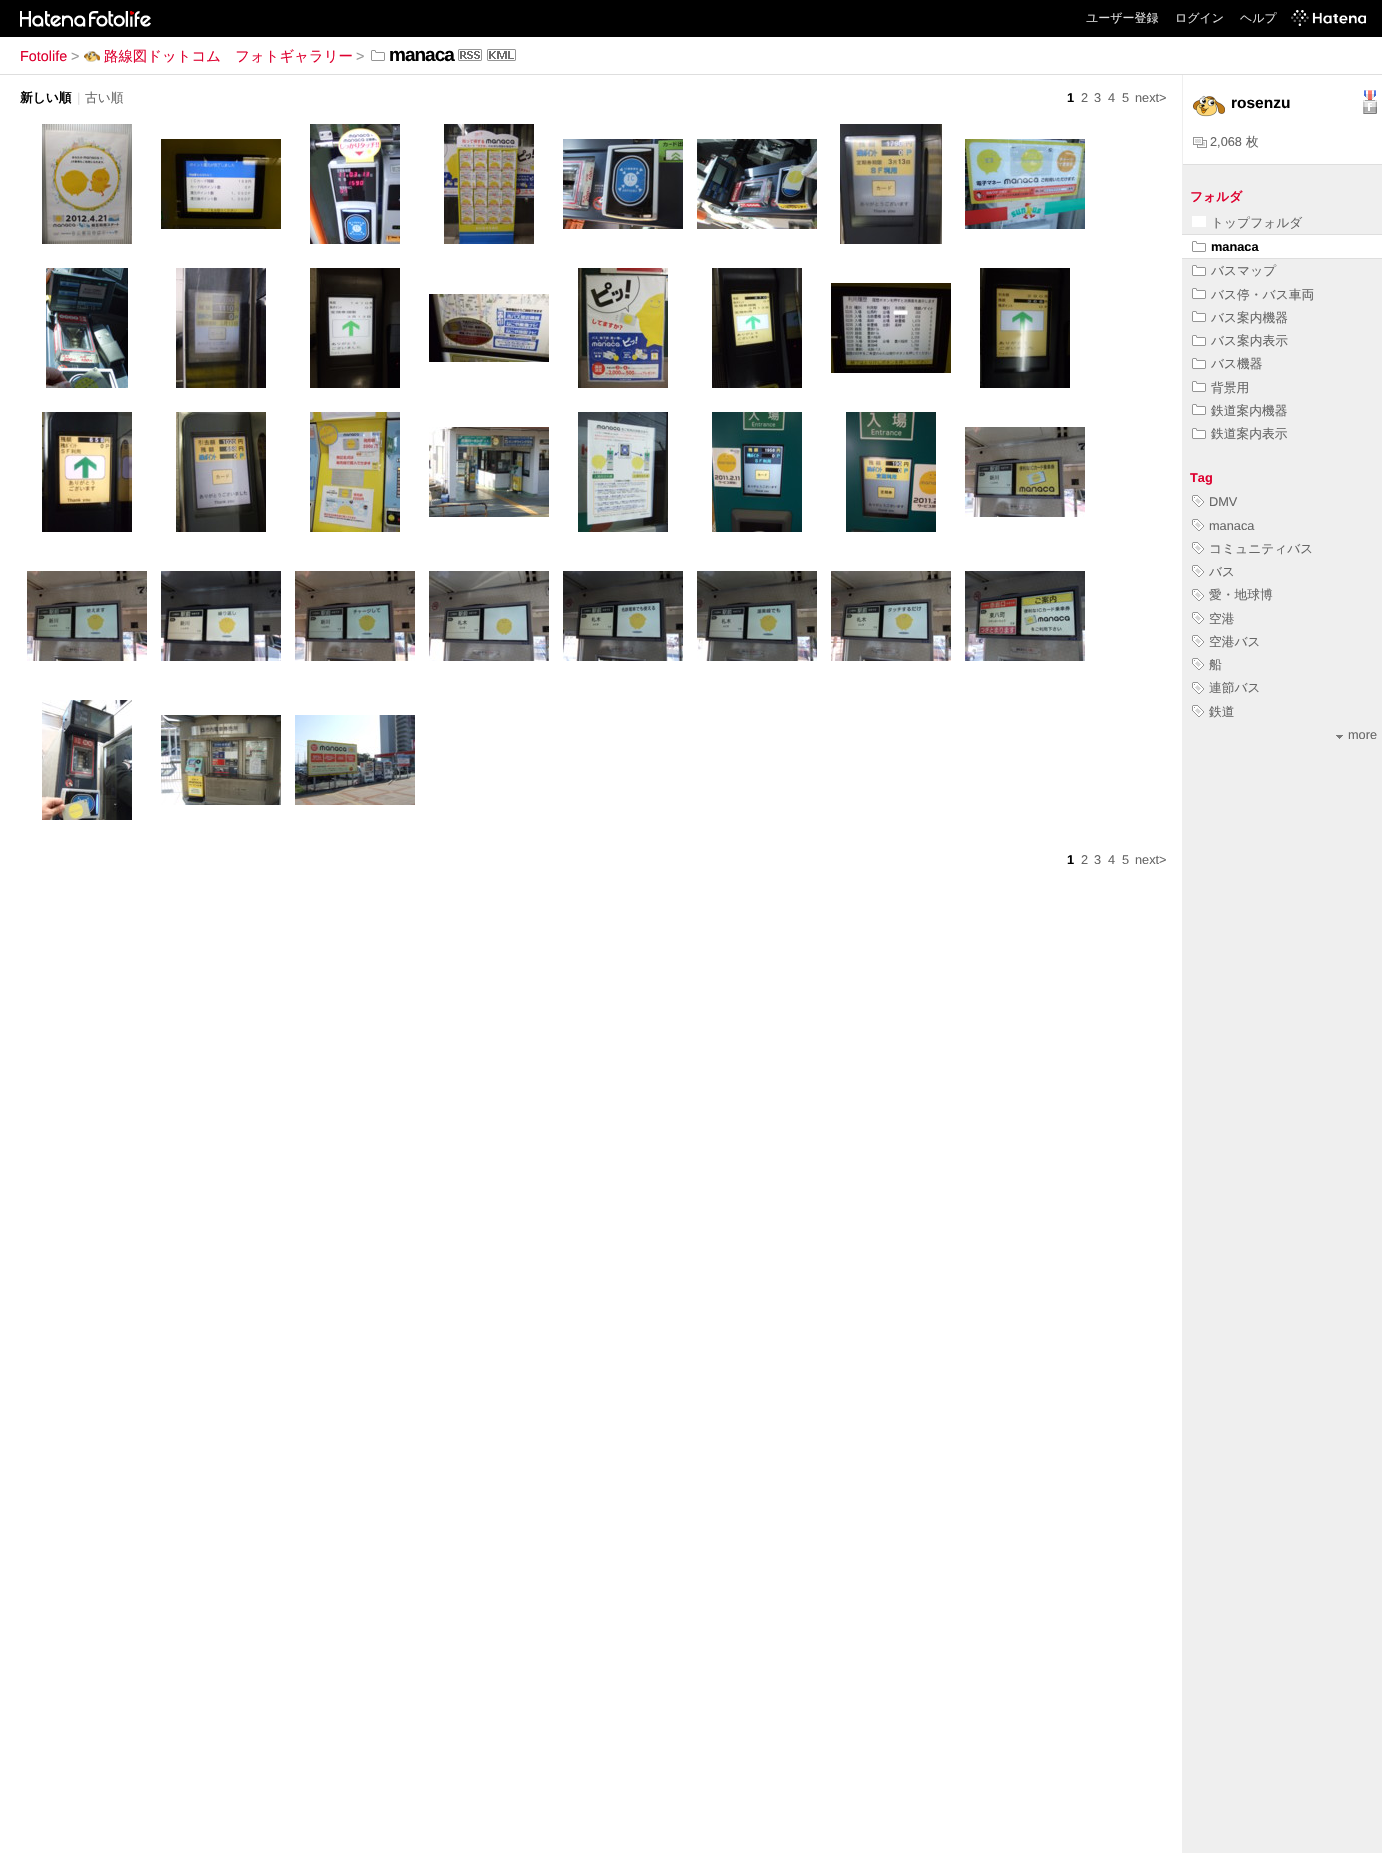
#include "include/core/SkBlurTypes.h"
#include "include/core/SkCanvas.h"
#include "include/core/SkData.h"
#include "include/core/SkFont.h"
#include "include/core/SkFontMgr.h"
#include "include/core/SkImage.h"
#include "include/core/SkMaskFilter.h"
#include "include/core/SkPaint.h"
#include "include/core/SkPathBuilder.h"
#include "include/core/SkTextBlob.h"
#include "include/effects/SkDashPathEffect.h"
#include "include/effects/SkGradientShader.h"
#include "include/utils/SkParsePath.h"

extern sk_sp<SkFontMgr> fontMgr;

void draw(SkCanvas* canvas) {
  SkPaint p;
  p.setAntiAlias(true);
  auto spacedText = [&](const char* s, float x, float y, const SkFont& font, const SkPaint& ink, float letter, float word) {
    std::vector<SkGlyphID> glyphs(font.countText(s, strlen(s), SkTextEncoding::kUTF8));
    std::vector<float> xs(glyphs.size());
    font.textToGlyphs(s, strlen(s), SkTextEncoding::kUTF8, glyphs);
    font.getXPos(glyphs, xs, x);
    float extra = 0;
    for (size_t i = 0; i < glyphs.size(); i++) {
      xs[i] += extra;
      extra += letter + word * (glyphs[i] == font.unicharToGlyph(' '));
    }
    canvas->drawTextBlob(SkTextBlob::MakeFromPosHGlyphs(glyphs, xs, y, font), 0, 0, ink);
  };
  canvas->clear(SK_ColorWHITE);
  p.setColor(SkColorSetRGB(239, 239, 239));
  canvas->drawRect(SkRect::MakeLTRB(1182, 75, 1382, 1853), p);
  p.setColor(SK_ColorBLACK);
  canvas->drawRect(SkRect::MakeLTRB(0, 0, 1382, 37), p);
  canvas->drawImageRect(SkImages::DeferredFromEncodedData(SkData::MakeFromFileName("images/1.png")), SkRect::MakeLTRB(20, 11, 86, 27), SkSamplingOptions());
  canvas->drawImageRect(SkImages::DeferredFromEncodedData(SkData::MakeFromFileName("images/2.png")), SkRect::MakeLTRB(89, 11, 151, 27), SkSamplingOptions());
  canvas->drawImageRect(SkImages::DeferredFromEncodedData(SkData::MakeFromFileName("images/3.png")), SkRect::MakeLTRB(1291, 10, 1366, 26), SkSamplingOptions());
  p.setColor(SkColorSetRGB(222, 222, 222));
  canvas->drawRect(SkRect::MakeLTRB(0, 74, 1382, 75), p);
  canvas->drawImageRect(SkImages::DeferredFromEncodedData(SkData::MakeFromFileName("images/4.png")), SkRect::MakeLTRB(84, 51, 100, 62), SkSamplingOptions());
  canvas->drawImageRect(SkImages::DeferredFromEncodedData(SkData::MakeFromFileName("images/5.png")), SkRect::MakeLTRB(371, 50, 385, 61), SkSamplingOptions());
  canvas->drawImageRect(SkImages::DeferredFromEncodedData(SkData::MakeFromFileName("images/6.png")), SkRect::MakeLTRB(458, 49, 482, 61), SkSamplingOptions());
  canvas->drawImageRect(SkImages::DeferredFromEncodedData(SkData::MakeFromFileName("images/7.png")), SkRect::MakeLTRB(487, 49, 516, 61), SkSamplingOptions());
  canvas->drawImageRect(SkImages::DeferredFromEncodedData(SkData::MakeFromFileName("images/8.png")), SkRect::MakeLTRB(42, 124, 132, 244), SkSamplingOptions());
  canvas->drawImageRect(SkImages::DeferredFromEncodedData(SkData::MakeFromFileName("images/9.png")), SkRect::MakeLTRB(161, 139, 281, 229), SkSamplingOptions());
  canvas->drawImageRect(SkImages::DeferredFromEncodedData(SkData::MakeFromFileName("images/10.png")), SkRect::MakeLTRB(310, 124, 400, 244), SkSamplingOptions());
  canvas->drawImageRect(SkImages::DeferredFromEncodedData(SkData::MakeFromFileName("images/11.png")), SkRect::MakeLTRB(444, 124, 534, 244), SkSamplingOptions());
  canvas->drawImageRect(SkImages::DeferredFromEncodedData(SkData::MakeFromFileName("images/12.png")), SkRect::MakeLTRB(563, 139, 683, 229), SkSamplingOptions());
  canvas->drawImageRect(SkImages::DeferredFromEncodedData(SkData::MakeFromFileName("images/13.png")), SkRect::MakeLTRB(697, 139, 817, 229), SkSamplingOptions());
  canvas->drawImageRect(SkImages::DeferredFromEncodedData(SkData::MakeFromFileName("images/14.png")), SkRect::MakeLTRB(840, 124, 942, 244), SkSamplingOptions());
  canvas->drawImageRect(SkImages::DeferredFromEncodedData(SkData::MakeFromFileName("images/15.png")), SkRect::MakeLTRB(965, 139, 1085, 229), SkSamplingOptions());
  canvas->drawImageRect(SkImages::DeferredFromEncodedData(SkData::MakeFromFileName("images/16.png")), SkRect::MakeLTRB(46, 268, 128, 388), SkSamplingOptions());
  canvas->drawImageRect(SkImages::DeferredFromEncodedData(SkData::MakeFromFileName("images/17.png")), SkRect::MakeLTRB(176, 268, 266, 388), SkSamplingOptions());
  canvas->drawImageRect(SkImages::DeferredFromEncodedData(SkData::MakeFromFileName("images/18.png")), SkRect::MakeLTRB(310, 268, 400, 388), SkSamplingOptions());
  canvas->drawImageRect(SkImages::DeferredFromEncodedData(SkData::MakeFromFileName("images/19.png")), SkRect::MakeLTRB(429, 294, 549, 362), SkSamplingOptions());
  canvas->drawImageRect(SkImages::DeferredFromEncodedData(SkData::MakeFromFileName("images/20.png")), SkRect::MakeLTRB(578, 268, 668, 388), SkSamplingOptions());
  canvas->drawImageRect(SkImages::DeferredFromEncodedData(SkData::MakeFromFileName("images/21.png")), SkRect::MakeLTRB(712, 268, 802, 388), SkSamplingOptions());
  canvas->drawImageRect(SkImages::DeferredFromEncodedData(SkData::MakeFromFileName("images/22.png")), SkRect::MakeLTRB(831, 283, 951, 373), SkSamplingOptions());
  canvas->drawImageRect(SkImages::DeferredFromEncodedData(SkData::MakeFromFileName("images/23.png")), SkRect::MakeLTRB(980, 268, 1070, 388), SkSamplingOptions());
  canvas->drawImageRect(SkImages::DeferredFromEncodedData(SkData::MakeFromFileName("images/24.png")), SkRect::MakeLTRB(42, 412, 132, 532), SkSamplingOptions());
  canvas->drawImageRect(SkImages::DeferredFromEncodedData(SkData::MakeFromFileName("images/25.png")), SkRect::MakeLTRB(176, 412, 266, 532), SkSamplingOptions());
  canvas->drawImageRect(SkImages::DeferredFromEncodedData(SkData::MakeFromFileName("images/26.png")), SkRect::MakeLTRB(310, 412, 400, 532), SkSamplingOptions());
  canvas->drawImageRect(SkImages::DeferredFromEncodedData(SkData::MakeFromFileName("images/27.png")), SkRect::MakeLTRB(429, 427, 549, 517), SkSamplingOptions());
  canvas->drawImageRect(SkImages::DeferredFromEncodedData(SkData::MakeFromFileName("images/28.png")), SkRect::MakeLTRB(578, 412, 668, 532), SkSamplingOptions());
  canvas->drawImageRect(SkImages::DeferredFromEncodedData(SkData::MakeFromFileName("images/29.png")), SkRect::MakeLTRB(712, 412, 802, 532), SkSamplingOptions());
  canvas->drawImageRect(SkImages::DeferredFromEncodedData(SkData::MakeFromFileName("images/30.png")), SkRect::MakeLTRB(846, 412, 936, 532), SkSamplingOptions());
  canvas->drawImageRect(SkImages::DeferredFromEncodedData(SkData::MakeFromFileName("images/31.png")), SkRect::MakeLTRB(965, 427, 1085, 517), SkSamplingOptions());
  canvas->drawImageRect(SkImages::DeferredFromEncodedData(SkData::MakeFromFileName("images/32.png")), SkRect::MakeLTRB(27, 571, 147, 661), SkSamplingOptions());
  canvas->drawImageRect(SkImages::DeferredFromEncodedData(SkData::MakeFromFileName("images/33.png")), SkRect::MakeLTRB(161, 571, 281, 661), SkSamplingOptions());
  canvas->drawImageRect(SkImages::DeferredFromEncodedData(SkData::MakeFromFileName("images/34.png")), SkRect::MakeLTRB(295, 571, 415, 661), SkSamplingOptions());
  canvas->drawImageRect(SkImages::DeferredFromEncodedData(SkData::MakeFromFileName("images/35.png")), SkRect::MakeLTRB(429, 571, 549, 661), SkSamplingOptions());
  canvas->drawImageRect(SkImages::DeferredFromEncodedData(SkData::MakeFromFileName("images/36.png")), SkRect::MakeLTRB(563, 571, 683, 661), SkSamplingOptions());
  canvas->drawImageRect(SkImages::DeferredFromEncodedData(SkData::MakeFromFileName("images/37.png")), SkRect::MakeLTRB(697, 571, 817, 661), SkSamplingOptions());
  canvas->drawImageRect(SkImages::DeferredFromEncodedData(SkData::MakeFromFileName("images/38.png")), SkRect::MakeLTRB(831, 571, 951, 661), SkSamplingOptions());
  canvas->drawImageRect(SkImages::DeferredFromEncodedData(SkData::MakeFromFileName("images/39.png")), SkRect::MakeLTRB(965, 571, 1085, 661), SkSamplingOptions());
  canvas->drawImageRect(SkImages::DeferredFromEncodedData(SkData::MakeFromFileName("images/40.png")), SkRect::MakeLTRB(42, 700, 132, 820), SkSamplingOptions());
  canvas->drawImageRect(SkImages::DeferredFromEncodedData(SkData::MakeFromFileName("images/41.png")), SkRect::MakeLTRB(161, 715, 281, 805), SkSamplingOptions());
  canvas->drawImageRect(SkImages::DeferredFromEncodedData(SkData::MakeFromFileName("images/42.png")), SkRect::MakeLTRB(295, 715, 415, 805), SkSamplingOptions());
  p.setColor(SK_ColorWHITE);
  canvas->drawRect(SkRect::MakeLTRB(1183, 75, 1382, 164), p);
  p.setColor(SkColorSetRGB(222, 222, 222));
  canvas->drawRect(SkRect::MakeLTRB(1183, 164, 1382, 165), p);
  canvas->drawImageRect(SkImages::DeferredFromEncodedData(SkData::MakeFromFileName("images/43.png")), SkRect::MakeLTRB(1193, 95, 1225, 117), SkSamplingOptions());
  canvas->drawImageRect(SkImages::DeferredFromEncodedData(SkData::MakeFromFileName("images/44.png")), SkRect::MakeLTRB(1363, 90, 1377, 114), SkSamplingOptions());
  canvas->drawImageRect(SkImages::DeferredFromEncodedData(SkData::MakeFromFileName("images/45.png")), SkRect::MakeLTRB(1193, 137, 1207, 148), SkSamplingOptions());
  p.setColor(SK_ColorWHITE);
  canvas->drawRect(SkRect::MakeLTRB(1192, 216, 1206, 227), p);
  canvas->drawRect(SkRect::MakeLTRB(1182, 235, 1382, 258), p);
  p.setColor(SkColorSetRGB(222, 222, 222));
  canvas->drawRect(SkRect::MakeLTRB(1182, 234, 1382, 235), p);
  canvas->drawRect(SkRect::MakeLTRB(1182, 258, 1382, 259), p);
  canvas->drawImageRect(SkImages::DeferredFromEncodedData(SkData::MakeFromFileName("images/5.png")), SkRect::MakeLTRB(1192, 241, 1206, 252), SkSamplingOptions());
  canvas->drawImageRect(SkImages::DeferredFromEncodedData(SkData::MakeFromFileName("images/46.png")), SkRect::MakeLTRB(1192, 265, 1206, 276), SkSamplingOptions());
  canvas->drawImageRect(SkImages::DeferredFromEncodedData(SkData::MakeFromFileName("images/46.png")), SkRect::MakeLTRB(1192, 288, 1206, 299), SkSamplingOptions());
  canvas->drawImageRect(SkImages::DeferredFromEncodedData(SkData::MakeFromFileName("images/46.png")), SkRect::MakeLTRB(1192, 311, 1206, 322), SkSamplingOptions());
  canvas->drawImageRect(SkImages::DeferredFromEncodedData(SkData::MakeFromFileName("images/46.png")), SkRect::MakeLTRB(1192, 335, 1206, 346), SkSamplingOptions());
  canvas->drawImageRect(SkImages::DeferredFromEncodedData(SkData::MakeFromFileName("images/46.png")), SkRect::MakeLTRB(1192, 358, 1206, 369), SkSamplingOptions());
  canvas->drawImageRect(SkImages::DeferredFromEncodedData(SkData::MakeFromFileName("images/46.png")), SkRect::MakeLTRB(1192, 381, 1206, 392), SkSamplingOptions());
  canvas->drawImageRect(SkImages::DeferredFromEncodedData(SkData::MakeFromFileName("images/46.png")), SkRect::MakeLTRB(1192, 404, 1206, 415), SkSamplingOptions());
  canvas->drawImageRect(SkImages::DeferredFromEncodedData(SkData::MakeFromFileName("images/46.png")), SkRect::MakeLTRB(1192, 428, 1206, 439), SkSamplingOptions());
  canvas->drawImageRect(SkImages::DeferredFromEncodedData(SkData::MakeFromFileName("images/47.png")), SkRect::MakeLTRB(1192, 495, 1204, 507), SkSamplingOptions());
  canvas->drawImageRect(SkImages::DeferredFromEncodedData(SkData::MakeFromFileName("images/47.png")), SkRect::MakeLTRB(1192, 519, 1204, 531), SkSamplingOptions());
  canvas->drawImageRect(SkImages::DeferredFromEncodedData(SkData::MakeFromFileName("images/47.png")), SkRect::MakeLTRB(1192, 542, 1204, 554), SkSamplingOptions());
  canvas->drawImageRect(SkImages::DeferredFromEncodedData(SkData::MakeFromFileName("images/47.png")), SkRect::MakeLTRB(1192, 565, 1204, 577), SkSamplingOptions());
  canvas->drawImageRect(SkImages::DeferredFromEncodedData(SkData::MakeFromFileName("images/47.png")), SkRect::MakeLTRB(1192, 589, 1204, 601), SkSamplingOptions());
  canvas->drawImageRect(SkImages::DeferredFromEncodedData(SkData::MakeFromFileName("images/47.png")), SkRect::MakeLTRB(1192, 612, 1204, 624), SkSamplingOptions());
  canvas->drawImageRect(SkImages::DeferredFromEncodedData(SkData::MakeFromFileName("images/47.png")), SkRect::MakeLTRB(1192, 635, 1204, 647), SkSamplingOptions());
  canvas->drawImageRect(SkImages::DeferredFromEncodedData(SkData::MakeFromFileName("images/47.png")), SkRect::MakeLTRB(1192, 658, 1204, 670), SkSamplingOptions());
  canvas->drawImageRect(SkImages::DeferredFromEncodedData(SkData::MakeFromFileName("images/47.png")), SkRect::MakeLTRB(1192, 682, 1204, 694), SkSamplingOptions());
  canvas->drawImageRect(SkImages::DeferredFromEncodedData(SkData::MakeFromFileName("images/47.png")), SkRect::MakeLTRB(1192, 705, 1204, 717), SkSamplingOptions());
  canvas->drawImageRect(SkImages::DeferredFromEncodedData(SkData::MakeFromFileName("images/48.png")), SkRect::MakeLTRB(1336, 735, 1343, 739), SkSamplingOptions());
  SkFont font1(fontMgr->matchFamilyStyle("WenQuanYi Zen Hei", SkFontStyle(500, SkFontStyle::kNormal_Width, SkFontStyle::kUpright_Slant)), 12);
  font1.setSubpixel(true);
  canvas->drawString("ユーザー登録", 1086, 22, font1, p);
  canvas->drawString("ログイン", 1175, 22, font1, p);
  canvas->drawString("ヘルプ", 1240, 22, font1, p);
  SkFont font2(fontMgr->matchFamilyStyle("Liberation Sans", SkFontStyle::Normal()), 14.4f);
  font2.setSubpixel(true);
  p.setColor(SkColorSetRGB(222, 0, 47));
  canvas->drawString("Fotolife", 20, 61, font2, p);
  p.setColor(SkColorSetRGB(153, 153, 153));
  canvas->drawString(">", 71, 61, font2, p);
  SkFont font3(fontMgr->matchFamilyStyle("WenQuanYi Zen Hei", SkFontStyle(500, SkFontStyle::kNormal_Width, SkFontStyle::kUpright_Slant)), 14.4f);
  font3.setSubpixel(true);
  p.setColor(SkColorSetRGB(222, 0, 47));
  canvas->drawString("路線図ドットコム　フォトギャラリー", 104, 61, font3, p);
  p.setColor(SkColorSetRGB(153, 153, 153));
  canvas->drawString(">", 356, 61, font2, p);
  SkFont font4(fontMgr->matchFamilyStyle("Liberation Sans", SkFontStyle::Bold()), 19);
  font4.setSubpixel(true);
  p.setColor(SK_ColorBLACK);
  spacedText("manaca", 389, 61, font4, p, -1, 0);
  SkFont font5(fontMgr->matchFamilyStyle("WenQuanYi Zen Hei", SkFontStyle::Bold()), 12.75f);
  font5.setSubpixel(true);
  canvas->drawString("新しい順", 20, 102, font5, p);
  SkFont font6(fontMgr->matchFamilyStyle("Liberation Sans", SkFontStyle::Normal()), 12.75f);
  font6.setSubpixel(true);
  p.setColor(SkColorSetRGB(222, 222, 222));
  canvas->drawString("|", 77, 102, font6, p);
  SkFont font7(fontMgr->matchFamilyStyle("WenQuanYi Zen Hei", SkFontStyle(500, SkFontStyle::kNormal_Width, SkFontStyle::kUpright_Slant)), 12.75f);
  font7.setSubpixel(true);
  p.setColor(SkColorSetRGB(102, 102, 102));
  canvas->drawString("古い順", 85, 102, font7, p);
  SkFont font8(fontMgr->matchFamilyStyle("Liberation Sans", SkFontStyle::Bold()), 12.75f);
  font8.setSubpixel(true);
  p.setColor(SK_ColorBLACK);
  canvas->drawString("1", 1067, 102, font8, p);
  p.setColor(SkColorSetRGB(102, 102, 102));
  canvas->drawString("2", 1081, 102, font6, p);
  canvas->drawString("3", 1094, 102, font6, p);
  canvas->drawString("4", 1108, 102, font6, p);
  canvas->drawString("5", 1122, 102, font6, p);
  canvas->drawString("next>", 1135, 102, font6, p);
  p.setColor(SK_ColorBLACK);
  canvas->drawString("1", 1067, 864, font8, p);
  p.setColor(SkColorSetRGB(102, 102, 102));
  canvas->drawString("2", 1081, 864, font6, p);
  canvas->drawString("3", 1094, 864, font6, p);
  canvas->drawString("4", 1108, 864, font6, p);
  canvas->drawString("5", 1122, 864, font6, p);
  canvas->drawString("next>", 1135, 864, font6, p);
  SkFont font9(fontMgr->matchFamilyStyle("Liberation Sans", SkFontStyle::Bold()), 15.5f);
  font9.setSubpixel(true);
  p.setColor(SK_ColorBLACK);
  canvas->drawString("rosenzu", 1231, 108, font9, p);
  p.setColor(SkColorSetRGB(102, 102, 102));
  canvas->drawString("2,068", 1210, 146, font6, p);
  canvas->drawString("枚", 1246, 146, font7, p);
  p.setColor(SkColorSetRGB(222, 0, 47));
  canvas->drawString("フォルダ", 1190, 201, font5, p);
  p.setColor(SkColorSetRGB(102, 102, 102));
  canvas->drawString("トップフォルダ", 1211, 227, font7, p);
  p.setColor(SK_ColorBLACK);
  canvas->drawString("manaca", 1211, 251, font8, p);
  p.setColor(SkColorSetRGB(102, 102, 102));
  canvas->drawString("バスマップ", 1211, 275, font7, p);
  canvas->drawString("バス停・バス車両", 1211, 299, font7, p);
  canvas->drawString("バス案内機器", 1211, 322, font7, p);
  canvas->drawString("バス案内表示", 1211, 345, font7, p);
  canvas->drawString("バス機器", 1211, 368, font7, p);
  canvas->drawString("背景用", 1211, 392, font7, p);
  canvas->drawString("鉄道案内機器", 1211, 415, font7, p);
  canvas->drawString("鉄道案内表示", 1211, 438, font7, p);
  p.setColor(SkColorSetRGB(222, 0, 47));
  canvas->drawString("Tag", 1190, 482, font8, p);
  p.setColor(SkColorSetRGB(102, 102, 102));
  canvas->drawString("DMV", 1209, 506, font6, p);
  canvas->drawString("manaca", 1209, 530, font6, p);
  canvas->drawString("コミュニティバス", 1209, 553, font7, p);
  canvas->drawString("バス", 1209, 576, font7, p);
  canvas->drawString("愛・地球博", 1209, 599, font7, p);
  canvas->drawString("空港", 1209, 623, font7, p);
  canvas->drawString("空港バス", 1209, 646, font7, p);
  canvas->drawString("船", 1209, 669, font7, p);
  canvas->drawString("連節バス", 1209, 692, font7, p);
  canvas->drawString("鉄道", 1209, 716, font7, p);
  canvas->drawString("more", 1348, 739, font6, p);
}
